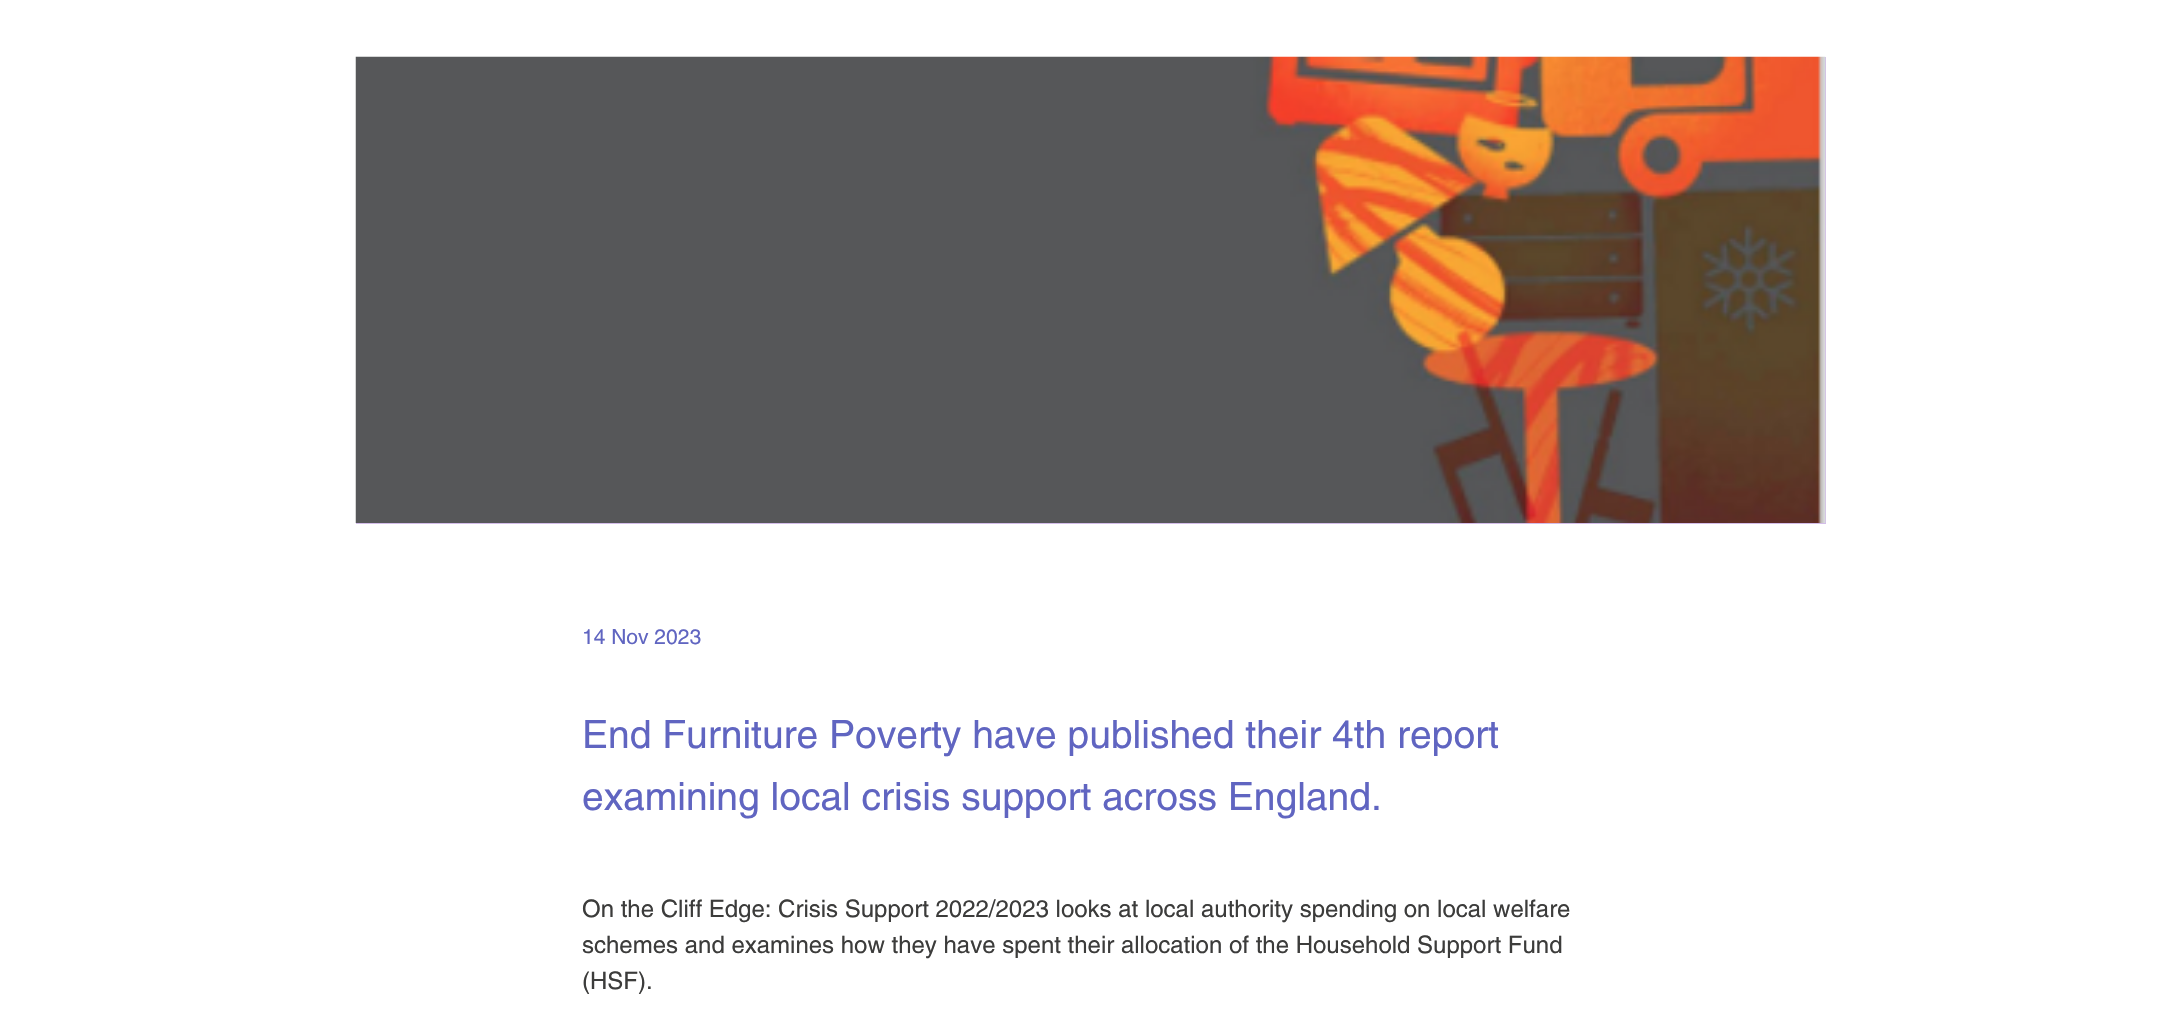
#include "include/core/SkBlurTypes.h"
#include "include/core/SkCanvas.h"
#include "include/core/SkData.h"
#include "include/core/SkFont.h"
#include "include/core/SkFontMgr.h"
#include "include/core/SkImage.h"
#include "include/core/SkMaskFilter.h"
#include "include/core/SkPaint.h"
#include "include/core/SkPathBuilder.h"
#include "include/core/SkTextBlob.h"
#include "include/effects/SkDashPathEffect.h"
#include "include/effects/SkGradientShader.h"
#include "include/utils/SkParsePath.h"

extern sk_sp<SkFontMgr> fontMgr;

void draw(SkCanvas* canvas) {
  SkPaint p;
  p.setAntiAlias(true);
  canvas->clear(SK_ColorWHITE);
  p.setColor(SkColorSetRGB(211, 189, 233));
  canvas->drawRect(SkRect::MakeLTRB(356, 57, 1826, 524), p);
  canvas->drawImageRect(SkImages::DeferredFromEncodedData(SkData::MakeFromFileName("images/1.png")), SkRect::MakeLTRB(355, 56, 1826, 523), SkSamplingOptions());
  SkFont font1(fontMgr->matchFamilyStyle("helvetica", SkFontStyle::Normal()), 21);
  font1.setSubpixel(true);
  p.setColor(SkColorSetRGB(96, 101, 193));
  canvas->drawString("14 Nov 2023", 582, 644, font1, p);
  SkFont font2(fontMgr->matchFamilyStyle("helvetica", SkFontStyle::Normal()), 39);
  font2.setSubpixel(true);
  canvas->drawString("End Furniture Poverty have published their 4th report", 582, 748, font2, p);
  canvas->drawString("examining local crisis support across England.", 582, 810, font2, p);
  SkFont font3(fontMgr->matchFamilyStyle("helvetica", SkFontStyle::Normal()), 24);
  font3.setSubpixel(true);
  p.setColor(SkColorSetRGB(60, 60, 59));
  canvas->drawString("On the Cliff Edge: Crisis Support 2022/2023 looks at local authority spending on local welfare", 582, 917, font3, p);
  canvas->drawString("schemes and examines how they have spent their allocation of the Household Support Fund", 582, 953, font3, p);
  canvas->drawString("(HSF).", 582, 989, font3, p);
}
